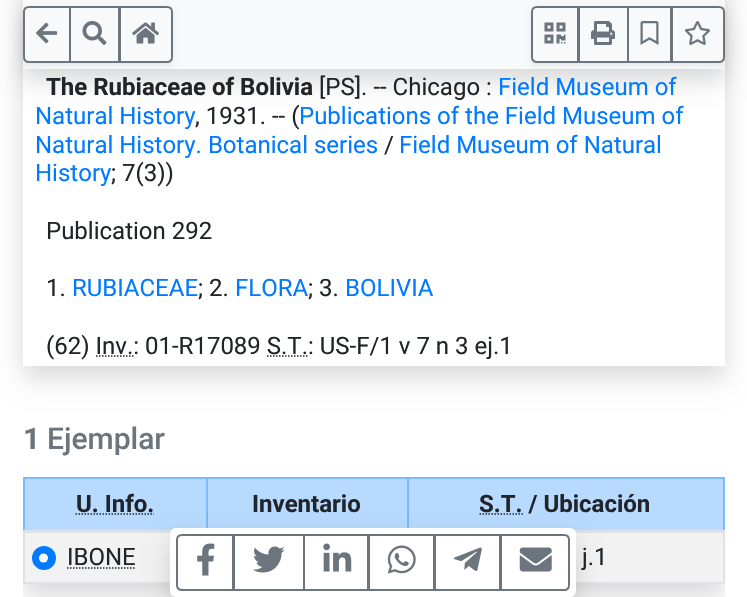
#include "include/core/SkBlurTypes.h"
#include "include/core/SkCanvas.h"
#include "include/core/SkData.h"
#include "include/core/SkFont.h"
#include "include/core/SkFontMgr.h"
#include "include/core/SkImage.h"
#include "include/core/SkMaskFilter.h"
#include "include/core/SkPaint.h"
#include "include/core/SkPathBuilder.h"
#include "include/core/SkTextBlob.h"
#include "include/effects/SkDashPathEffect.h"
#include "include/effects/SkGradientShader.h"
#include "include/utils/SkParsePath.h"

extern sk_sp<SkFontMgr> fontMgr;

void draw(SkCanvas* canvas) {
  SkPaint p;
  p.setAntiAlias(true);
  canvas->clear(SK_ColorWHITE);
  p.setColor(SkColorSetARGB(38, 0, 0, 0));
  p.setMaskFilter(SkMaskFilter::MakeBlur(kNormal_SkBlurStyle, 12));
  canvas->drawRect(SkRect::MakeLTRB(23, 12, 725, 81), p);
  p.setMaskFilter(nullptr);
  canvas->save();
  canvas->clipPath(SkPathBuilder(SkPathFillType::kEvenOdd).moveTo(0, 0).lineTo(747, 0).lineTo(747, 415).lineTo(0, 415).close().moveTo(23, -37).lineTo(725, -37).lineTo(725, 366).lineTo(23, 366).close().detach(), true);
  p.setMaskFilter(SkMaskFilter::MakeBlur(kNormal_SkBlurStyle, 12));
  canvas->drawRect(SkRect::MakeLTRB(23, -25, 725, 378), p);
  p.setMaskFilter(nullptr);
  canvas->restore();
  p.setColor(SkColorSetRGB(248, 249, 250));
  canvas->drawRect(SkRect::MakeLTRB(23, 0, 725, 69), p);
  canvas->save();
  canvas->clipPath(SkPathBuilder(SkPathFillType::kEvenOdd).moveTo(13, 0).lineTo(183, 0).lineTo(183, 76).lineTo(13, 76).close().moveTo(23, 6).lineTo(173, 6).lineTo(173, 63).lineTo(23, 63).close().detach(), true);
  p.setColor(SkColorSetARGB(18, 0, 0, 0));
  p.setMaskFilter(SkMaskFilter::MakeBlur(kNormal_SkBlurStyle, 3));
  canvas->drawRect(SkRect::MakeLTRB(23, 9, 173, 66), p);
  p.setMaskFilter(nullptr);
  canvas->restore();
  p.setStyle(SkPaint::kStroke_Style);
  p.setStrokeWidth(2);
  p.setColor(SkColorSetRGB(108, 117, 125));
  canvas->drawPath(SkPathBuilder().moveTo(29, 7).lineTo(70, 7).lineTo(70, 62).lineTo(29, 62).cubicTo(26, 62, 24, 60, 24, 57).lineTo(24, 12).cubicTo(24, 9, 26, 7, 29, 7).close().detach(), p);
  canvas->drawImageRect(SkImages::DeferredFromEncodedData(SkData::MakeFromFileName("images/1.png")), SkRect::MakeLTRB(36, 22, 58, 44), SkSamplingOptions());
  canvas->drawRect(SkRect::MakeLTRB(70, 7, 119, 62), p);
  canvas->drawImageRect(SkImages::DeferredFromEncodedData(SkData::MakeFromFileName("images/2.png")), SkRect::MakeLTRB(82, 21, 107, 45), SkSamplingOptions());
  canvas->drawPath(SkPathBuilder().moveTo(120, 7).lineTo(167, 7).cubicTo(170, 7, 172, 9, 172, 12).lineTo(172, 57).cubicTo(172, 60, 170, 62, 167, 62).lineTo(120, 62).close().detach(), p);
  canvas->drawImageRect(SkImages::DeferredFromEncodedData(SkData::MakeFromFileName("images/3.png")), SkRect::MakeLTRB(132, 22, 159, 44), SkSamplingOptions());
  canvas->save();
  canvas->clipPath(SkPathBuilder(SkPathFillType::kEvenOdd).moveTo(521, 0).lineTo(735, 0).lineTo(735, 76).lineTo(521, 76).close().moveTo(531, 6).lineTo(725, 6).lineTo(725, 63).lineTo(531, 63).close().detach(), true);
  p.setStyle(SkPaint::kFill_Style);
  p.setColor(SkColorSetARGB(18, 0, 0, 0));
  p.setMaskFilter(SkMaskFilter::MakeBlur(kNormal_SkBlurStyle, 3));
  canvas->drawRect(SkRect::MakeLTRB(531, 9, 725, 66), p);
  p.setMaskFilter(nullptr);
  canvas->restore();
  p.setStyle(SkPaint::kStroke_Style);
  p.setColor(SkColorSetRGB(108, 117, 125));
  canvas->drawPath(SkPathBuilder().moveTo(537, 7).lineTo(578, 7).lineTo(578, 62).lineTo(537, 62).cubicTo(534, 62, 532, 60, 532, 57).lineTo(532, 12).cubicTo(532, 9, 534, 7, 537, 7).close().detach(), p);
  canvas->drawImageRect(SkImages::DeferredFromEncodedData(SkData::MakeFromFileName("images/4.png")), SkRect::MakeLTRB(544, 22, 566, 44), SkSamplingOptions());
  canvas->drawRect(SkRect::MakeLTRB(579, 7, 628, 62), p);
  canvas->drawImageRect(SkImages::DeferredFromEncodedData(SkData::MakeFromFileName("images/5.png")), SkRect::MakeLTRB(591, 21, 615, 45), SkSamplingOptions());
  canvas->drawRect(SkRect::MakeLTRB(628, 7, 671, 62), p);
  canvas->drawImageRect(SkImages::DeferredFromEncodedData(SkData::MakeFromFileName("images/6.png")), SkRect::MakeLTRB(640, 21, 659, 45), SkSamplingOptions());
  canvas->drawPath(SkPathBuilder().moveTo(672, 7).lineTo(719, 7).cubicTo(722, 7, 724, 9, 724, 12).lineTo(724, 57).cubicTo(724, 60, 722, 62, 719, 62).lineTo(672, 62).close().detach(), p);
  canvas->drawImageRect(SkImages::DeferredFromEncodedData(SkData::MakeFromFileName("images/7.png")), SkRect::MakeLTRB(685, 21, 710, 45), SkSamplingOptions());
  p.setStrokeWidth(1.5f);
  p.setColor(SkColorSetRGB(33, 37, 41));
  p.setPathEffect(SkDashPathEffect::Make({{1.5f, 1.5f}}, 0));
  canvas->drawPath(SkPathBuilder().moveTo(96, 356).lineTo(133.5f, 356).detach(), p);
  p.setPathEffect(nullptr);
  p.setPathEffect(SkDashPathEffect::Make({{1.5f, 1.5f}}, 0));
  canvas->drawPath(SkPathBuilder().moveTo(267, 356).lineTo(308.5f, 356).detach(), p);
  p.setPathEffect(nullptr);
  canvas->save();
  canvas->clipRect(SkRect::MakeLTRB(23, 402, 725, 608));
  canvas->clipPath(SkPathBuilder(SkPathFillType::kEvenOdd).moveTo(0, 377).lineTo(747, 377).lineTo(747, 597).lineTo(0, 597).close().moveTo(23, 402).lineTo(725, 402).lineTo(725, 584).lineTo(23, 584).close().detach(), true);
  p.setStyle(SkPaint::kFill_Style);
  p.setColor(SkColorSetARGB(38, 0, 0, 0));
  p.setMaskFilter(SkMaskFilter::MakeBlur(kNormal_SkBlurStyle, 12));
  canvas->drawRect(SkRect::MakeLTRB(23, 414, 725, 596), p);
  p.setMaskFilter(nullptr);
  canvas->restore();
  p.setColor(SkColorSetRGB(184, 218, 255));
  canvas->drawRect(SkRect::MakeLTRB(25, 479, 723, 530), p);
  p.setColor(SkColorSetRGB(122, 186, 255));
  canvas->drawRect(SkRect::MakeLTRB(407, 477, 725, 479), p);
  canvas->drawRect(SkRect::MakeLTRB(407, 477, 409, 531), p);
  canvas->drawRect(SkRect::MakeLTRB(206, 477, 408, 479), p);
  canvas->drawRect(SkRect::MakeLTRB(206, 477, 208, 531), p);
  canvas->drawRect(SkRect::MakeLTRB(23, 477, 207, 479), p);
  p.setColor(SkColorSetRGB(222, 226, 230));
  canvas->drawRect(SkRect::MakeLTRB(23, 582, 170, 584), p);
  canvas->drawRect(SkRect::MakeLTRB(23, 530, 25, 584), p);
  p.setColor(SkColorSetRGB(122, 186, 255));
  canvas->drawRect(SkRect::MakeLTRB(23, 477, 25, 531), p);
  p.setColor(SkColorSetRGB(222, 226, 230));
  canvas->drawRect(SkRect::MakeLTRB(23, 530, 172, 533), p);
  p.setStyle(SkPaint::kStroke_Style);
  p.setColor(SkColorSetRGB(33, 37, 41));
  p.setPathEffect(SkDashPathEffect::Make({{1.5f, 1.5f}}, 0));
  canvas->drawPath(SkPathBuilder().moveTo(75.5f, 514).lineTo(154, 514).detach(), p);
  p.setPathEffect(nullptr);
  p.setStyle(SkPaint::kFill_Style);
  p.setColor(SkColorSetRGB(222, 226, 230));
  canvas->drawRect(SkRect::MakeLTRB(723, 530, 725, 584), p);
  p.setColor(SkColorSetRGB(122, 186, 255));
  canvas->drawRect(SkRect::MakeLTRB(723, 477, 725, 531), p);
  p.setColor(SkColorSetRGB(222, 226, 230));
  canvas->drawRect(SkRect::MakeLTRB(574, 530, 725, 533), p);
  p.setStyle(SkPaint::kStroke_Style);
  p.setColor(SkColorSetRGB(33, 37, 41));
  p.setPathEffect(SkDashPathEffect::Make({{1.5f, 1.5f}}, 0));
  canvas->drawPath(SkPathBuilder().moveTo(479.5f, 514).lineTo(523, 514).detach(), p);
  p.setPathEffect(nullptr);
  p.setStyle(SkPaint::kFill_Style);
  p.setColor(SkColorSetARGB(13, 0, 0, 0));
  canvas->drawRect(SkRect::MakeLTRB(25, 533, 723, 582), p);
  p.setColor(SkColorSetRGB(0, 123, 255));
  canvas->drawCircle(44, 558, 11, p);
  p.setStyle(SkPaint::kStroke_Style);
  p.setStrokeWidth(2);
  canvas->drawCircle(44, 558, 11, p);
  p.setStrokeWidth(1.5f);
  p.setColor(SkColorSetRGB(33, 37, 41));
  p.setPathEffect(SkDashPathEffect::Make({{1.5f, 1.5f}}, 0));
  canvas->drawPath(SkPathBuilder().moveTo(67, 568).lineTo(136, 568).detach(), p);
  p.setPathEffect(nullptr);
  p.setStyle(SkPaint::kFill_Style);
  p.setColor(SK_ColorWHITE);
  canvas->drawCircle(43.5f, 558, 4.5f, p);
  p.setColor(SkColorSetRGB(222, 226, 230));
  canvas->drawRect(SkRect::MakeLTRB(576, 582, 725, 584), p);
  p.setColor(SkColorSetARGB(38, 0, 0, 0));
  p.setMaskFilter(SkMaskFilter::MakeBlur(kNormal_SkBlurStyle, 12));
  canvas->drawRoundRect(SkRect::MakeLTRB(170, 540, 576, 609), 6, 6, p);
  p.setMaskFilter(nullptr);
  p.setColor(SK_ColorWHITE);
  canvas->drawRoundRect(SkRect::MakeLTRB(170, 528, 576, 597), 6, 6, p);
  p.setStyle(SkPaint::kStroke_Style);
  p.setStrokeWidth(2);
  p.setColor(SkColorSetRGB(108, 117, 125));
  canvas->drawPath(SkPathBuilder().moveTo(182, 535).lineTo(233, 535).lineTo(233, 590).lineTo(182, 590).cubicTo(179, 590, 177, 588, 177, 585).lineTo(177, 540).cubicTo(177, 537, 179, 535, 182, 535).close().detach(), p);
  canvas->drawImageRect(SkImages::DeferredFromEncodedData(SkData::MakeFromFileName("images/8.png")), SkRect::MakeLTRB(197, 543, 215, 576), SkSamplingOptions());
  canvas->drawRect(SkRect::MakeLTRB(234, 535, 304, 590), p);
  canvas->drawImageRect(SkImages::DeferredFromEncodedData(SkData::MakeFromFileName("images/9.png")), SkRect::MakeLTRB(253, 546, 285, 573), SkSamplingOptions());
  canvas->drawRect(SkRect::MakeLTRB(304, 535, 368, 590), p);
  canvas->drawImageRect(SkImages::DeferredFromEncodedData(SkData::MakeFromFileName("images/10.png")), SkRect::MakeLTRB(323, 543, 352, 572), SkSamplingOptions());
  canvas->drawRect(SkRect::MakeLTRB(369, 535, 434, 590), p);
  canvas->drawImageRect(SkImages::DeferredFromEncodedData(SkData::MakeFromFileName("images/11.png")), SkRect::MakeLTRB(387, 545, 416, 574), SkSamplingOptions());
  canvas->drawRect(SkRect::MakeLTRB(435, 535, 500, 590), p);
  canvas->drawImageRect(SkImages::DeferredFromEncodedData(SkData::MakeFromFileName("images/12.png")), SkRect::MakeLTRB(453, 547, 482, 571), SkSamplingOptions());
  canvas->drawPath(SkPathBuilder().moveTo(501, 535).lineTo(564, 535).cubicTo(567, 535, 569, 537, 569, 540).lineTo(569, 585).cubicTo(569, 588, 567, 590, 564, 590).lineTo(501, 590).close().detach(), p);
  canvas->drawImageRect(SkImages::DeferredFromEncodedData(SkData::MakeFromFileName("images/13.png")), SkRect::MakeLTRB(519, 547, 552, 572), SkSamplingOptions());
  SkFont font1(fontMgr->matchFamilyStyle("Roboto", SkFontStyle::Bold()), 24);
  font1.setSubpixel(true);
  p.setStyle(SkPaint::kFill_Style);
  p.setColor(SkColorSetRGB(33, 37, 41));
  canvas->drawString("The Rubiaceae of Bolivia", 46, 95, font1, p);
  SkFont font2(fontMgr->matchFamilyStyle("Roboto", SkFontStyle::Normal()), 24);
  font2.setSubpixel(true);
  canvas->drawString("[PS]. -- Chicago :", 319, 95, font2, p);
  p.setColor(SkColorSetRGB(0, 123, 255));
  canvas->drawString("Field Museum of", 498, 95, font2, p);
  canvas->drawString("Natural History", 35, 124, font2, p);
  p.setColor(SkColorSetRGB(33, 37, 41));
  canvas->drawString(", 1931. -- (", 195, 124, font2, p);
  p.setColor(SkColorSetRGB(0, 123, 255));
  canvas->drawString("Publications of the Field Museum of", 299, 124, font2, p);
  canvas->drawString("Natural History. Botanical series", 35, 153, font2, p);
  p.setColor(SkColorSetRGB(33, 37, 41));
  canvas->drawString("/", 384, 153, font2, p);
  p.setColor(SkColorSetRGB(0, 123, 255));
  canvas->drawString("Field Museum of Natural", 399, 153, font2, p);
  canvas->drawString("History", 35, 181, font2, p);
  p.setColor(SkColorSetRGB(33, 37, 41));
  canvas->drawString("; 7(3))", 111, 181, font2, p);
  canvas->drawString("Publication 292", 46, 239, font2, p);
  canvas->drawString("1.", 46, 296, font2, p);
  p.setColor(SkColorSetRGB(0, 123, 255));
  canvas->drawString("RUBIACEAE", 72, 296, font2, p);
  p.setColor(SkColorSetRGB(33, 37, 41));
  canvas->drawString("; 2.", 198, 296, font2, p);
  p.setColor(SkColorSetRGB(0, 123, 255));
  canvas->drawString("FLORA", 235, 296, font2, p);
  p.setColor(SkColorSetRGB(33, 37, 41));
  canvas->drawString("; 3.", 308, 296, font2, p);
  p.setColor(SkColorSetRGB(0, 123, 255));
  canvas->drawString("BOLIVIA", 345, 296, font2, p);
  p.setColor(SkColorSetRGB(33, 37, 41));
  canvas->drawString("(62) Inv.: 01-R17089 S.T.: US-F/1 v 7 n 3 ej.1", 46, 354, font2, p);
  SkFont font3(fontMgr->matchFamilyStyle("Roboto", SkFontStyle::Bold()), 30);
  font3.setSubpixel(true);
  p.setColor(SkColorSetRGB(108, 117, 125));
  canvas->drawString("1", 23, 449, font3, p);
  SkFont font4(fontMgr->matchFamilyStyle("Roboto", SkFontStyle(500, SkFontStyle::kNormal_Width, SkFontStyle::kUpright_Slant)), 30);
  font4.setSubpixel(true);
  canvas->drawString("Ejemplar", 47, 449, font4, p);
  p.setColor(SkColorSetRGB(33, 37, 41));
  canvas->drawString("U. Info.", 76, 512, font1, p);
  canvas->drawString("Inventario", 252, 512, font1, p);
  canvas->drawString("S.T. / Ubicación", 479, 512, font1, p);
  canvas->drawString("IBONE", 67, 565, font2, p);
  canvas->drawString("j.1", 582, 565, font2, p);
}
